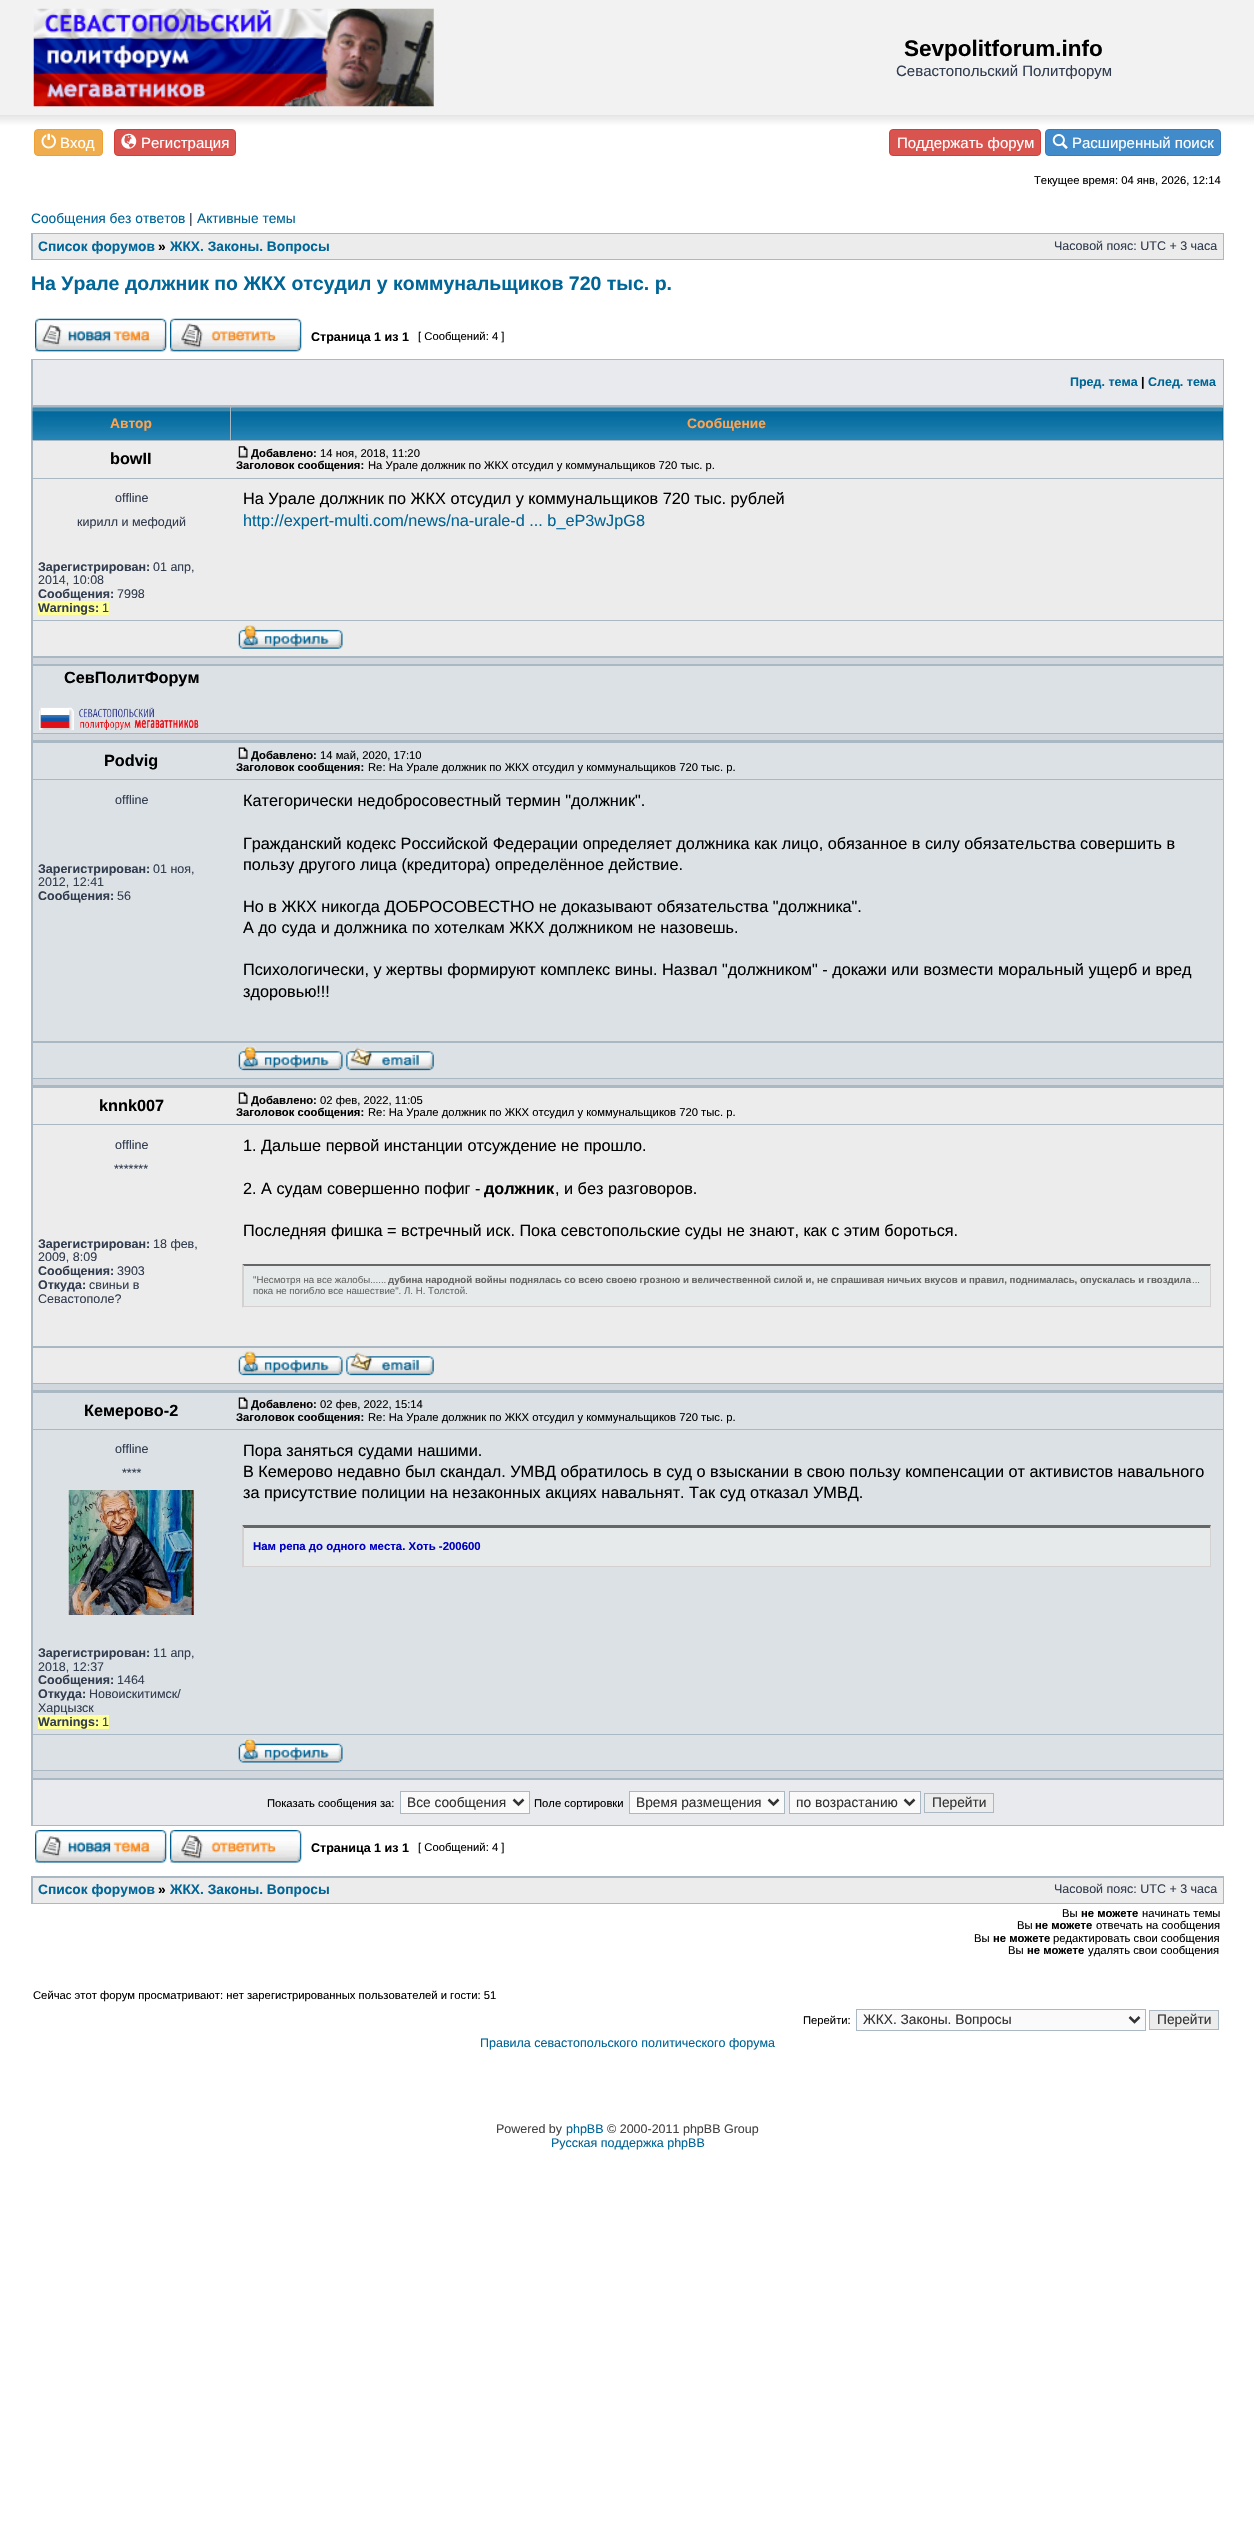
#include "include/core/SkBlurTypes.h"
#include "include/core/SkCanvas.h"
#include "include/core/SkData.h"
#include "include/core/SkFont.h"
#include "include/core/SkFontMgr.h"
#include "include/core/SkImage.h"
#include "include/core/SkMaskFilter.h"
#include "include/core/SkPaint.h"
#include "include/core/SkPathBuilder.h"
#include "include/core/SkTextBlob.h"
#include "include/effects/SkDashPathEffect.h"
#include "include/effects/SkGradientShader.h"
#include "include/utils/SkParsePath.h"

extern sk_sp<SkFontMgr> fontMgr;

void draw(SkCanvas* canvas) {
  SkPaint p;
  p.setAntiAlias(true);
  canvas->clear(SK_ColorWHITE);
  p.setColor(SkColorSetRGB(242, 242, 242));
  canvas->drawRect(SkRect::MakeLTRB(0, 0, 1254, 115), p);
  p.setColor(SkColorSetRGB(229, 229, 229));
  canvas->drawRect(SkRect::MakeLTRB(0, 115, 1254, 116), p);
  canvas->drawImageRect(SkImages::DeferredFromEncodedData(SkData::MakeFromFileName("images/1.png")), SkRect::MakeLTRB(33, 8, 434, 107), SkSamplingOptions());
  {
    const SkColor colors[] = {SkColorSetRGB(231, 231, 231), SK_ColorWHITE};
    const float stops[] = {0, 1};
    const SkPoint ends[] = {{0, 116}, {0, 126}};
    p.setShader(SkGradientShader::MakeLinear(ends, colors, stops, 2, SkTileMode::kClamp));
    p.setAlpha(255);
  }
  canvas->drawRect(SkRect::MakeLTRB(0, 116, 1254, 125), p);
  p.setShader(nullptr);
  p.setColor(SkColorSetRGB(240, 173, 78));
  canvas->drawRoundRect(SkRect::MakeLTRB(34.5f, 129.5f, 102.5f, 155.5f), 3.5f, 3.5f, p);
  p.setStyle(SkPaint::kStroke_Style);
  p.setStrokeWidth(1);
  p.setColor(SkColorSetRGB(238, 162, 54));
  canvas->drawRoundRect(SkRect::MakeLTRB(34.5f, 129.5f, 102.5f, 155.5f), 3.5f, 3.5f, p);
  canvas->drawImageRect(SkImages::DeferredFromEncodedData(SkData::MakeFromFileName("images/2.png")), SkRect::MakeLTRB(41, 133, 56, 149), SkSamplingOptions());
  p.setStyle(SkPaint::kFill_Style);
  p.setColor(SkColorSetRGB(217, 83, 79));
  canvas->drawRoundRect(SkRect::MakeLTRB(114.5f, 129.5f, 235.5f, 155.5f), 3.5f, 3.5f, p);
  p.setStyle(SkPaint::kStroke_Style);
  p.setColor(SkColorSetRGB(212, 63, 58));
  canvas->drawRoundRect(SkRect::MakeLTRB(114.5f, 129.5f, 235.5f, 155.5f), 3.5f, 3.5f, p);
  canvas->drawImageRect(SkImages::DeferredFromEncodedData(SkData::MakeFromFileName("images/3.png")), SkRect::MakeLTRB(121, 133, 137, 149), SkSamplingOptions());
  p.setStyle(SkPaint::kFill_Style);
  p.setColor(SkColorSetRGB(217, 83, 79));
  canvas->drawRoundRect(SkRect::MakeLTRB(889.5f, 129.5f, 1040.5f, 155.5f), 3.5f, 3.5f, p);
  p.setStyle(SkPaint::kStroke_Style);
  p.setColor(SkColorSetRGB(212, 63, 58));
  canvas->drawRoundRect(SkRect::MakeLTRB(889.5f, 129.5f, 1040.5f, 155.5f), 3.5f, 3.5f, p);
  p.setStyle(SkPaint::kFill_Style);
  p.setColor(SkColorSetRGB(66, 139, 202));
  canvas->drawRoundRect(SkRect::MakeLTRB(1045.5f, 129.5f, 1220.5f, 155.5f), 3.5f, 3.5f, p);
  p.setStyle(SkPaint::kStroke_Style);
  p.setColor(SkColorSetRGB(53, 126, 189));
  canvas->drawRoundRect(SkRect::MakeLTRB(1045.5f, 129.5f, 1220.5f, 155.5f), 3.5f, 3.5f, p);
  canvas->drawImageRect(SkImages::DeferredFromEncodedData(SkData::MakeFromFileName("images/4.png")), SkRect::MakeLTRB(1052, 134, 1068, 149), SkSamplingOptions());
  p.setStyle(SkPaint::kFill_Style);
  p.setColor(SkColorSetRGB(169, 184, 194));
  canvas->drawRect(SkRect::MakeLTRB(31, 233, 1224, 260), p);
  p.setColor(SkColorSetRGB(236, 236, 236));
  canvas->drawRect(SkRect::MakeLTRB(33, 234, 1223, 259), p);
  canvas->drawImageRect(SkImages::DeferredFromEncodedData(SkData::MakeFromFileName("images/5.png")), SkRect::MakeLTRB(35, 318, 167, 353), SkSamplingOptions());
  canvas->drawImageRect(SkImages::DeferredFromEncodedData(SkData::MakeFromFileName("images/6.png")), SkRect::MakeLTRB(170, 318, 302, 353), SkSamplingOptions());
  p.setColor(SkColorSetRGB(169, 184, 194));
  canvas->drawRect(SkRect::MakeLTRB(31, 359, 1224, 1826), p);
  p.setColor(SkColorSetRGB(233, 234, 237));
  canvas->drawRect(SkRect::MakeLTRB(33, 360, 1223, 405), p);
  canvas->drawImageRect(SkImages::DeferredFromEncodedData(SkData::MakeFromFileName("images/7.png")), SkRect::MakeLTRB(32, 407, 230, 440), SkSamplingOptions());
  p.setColor(SkColorSetRGB(0, 102, 153));
  canvas->drawRect(SkRect::MakeLTRB(231, 408, 1223, 440), p);
  canvas->drawImageRect(SkImages::DeferredFromEncodedData(SkData::MakeFromFileName("images/8.png")), SkRect::MakeLTRB(231, 407, 1223, 440), SkSamplingOptions());
  p.setColor(SkColorSetRGB(236, 236, 236));
  canvas->drawRect(SkRect::MakeLTRB(33, 441, 1223, 478), p);
  canvas->drawImageRect(SkImages::DeferredFromEncodedData(SkData::MakeFromFileName("images/9.png")), SkRect::MakeLTRB(238, 446, 248, 458), SkSamplingOptions());
  canvas->drawRect(SkRect::MakeLTRB(33, 479, 1223, 620), p);
  p.setColor(SkColorSetRGB(255, 255, 153));
  canvas->drawRect(SkRect::MakeLTRB(38, 601, 109, 615), p);
  p.setColor(SkColorSetRGB(236, 236, 236));
  canvas->drawRect(SkRect::MakeLTRB(33, 621, 1223, 656), p);
  canvas->drawImageRect(SkImages::DeferredFromEncodedData(SkData::MakeFromFileName("images/10.png")), SkRect::MakeLTRB(238, 625, 343, 649), SkSamplingOptions());
  p.setColor(SkColorSetRGB(209, 215, 220));
  canvas->drawRect(SkRect::MakeLTRB(33, 658, 1223, 664), p);
  p.setColor(SkColorSetRGB(220, 225, 229));
  canvas->drawRect(SkRect::MakeLTRB(33, 666, 1223, 733), p);
  canvas->drawImageRect(SkImages::DeferredFromEncodedData(SkData::MakeFromFileName("images/11.png")), SkRect::MakeLTRB(39, 707, 199, 730), SkSamplingOptions());
  p.setColor(SkColorSetRGB(209, 215, 220));
  canvas->drawRect(SkRect::MakeLTRB(33, 734, 1223, 740), p);
  p.setColor(SkColorSetRGB(220, 225, 229));
  canvas->drawRect(SkRect::MakeLTRB(33, 743, 1223, 779), p);
  canvas->drawImageRect(SkImages::DeferredFromEncodedData(SkData::MakeFromFileName("images/12.png")), SkRect::MakeLTRB(238, 747, 248, 759), SkSamplingOptions());
  canvas->drawRect(SkRect::MakeLTRB(33, 780, 1223, 1041), p);
  canvas->drawRect(SkRect::MakeLTRB(33, 1043, 1223, 1078), p);
  canvas->drawImageRect(SkImages::DeferredFromEncodedData(SkData::MakeFromFileName("images/13.png")), SkRect::MakeLTRB(238, 1046, 343, 1071), SkSamplingOptions());
  canvas->drawImageRect(SkImages::DeferredFromEncodedData(SkData::MakeFromFileName("images/14.png")), SkRect::MakeLTRB(346, 1047, 434, 1071), SkSamplingOptions());
  p.setColor(SkColorSetRGB(209, 215, 220));
  canvas->drawRect(SkRect::MakeLTRB(33, 1079, 1223, 1085), p);
  p.setColor(SkColorSetRGB(236, 236, 236));
  canvas->drawRect(SkRect::MakeLTRB(33, 1088, 1223, 1124), p);
  canvas->drawImageRect(SkImages::DeferredFromEncodedData(SkData::MakeFromFileName("images/15.png")), SkRect::MakeLTRB(238, 1092, 248, 1104), SkSamplingOptions());
  canvas->drawRect(SkRect::MakeLTRB(33, 1125, 1223, 1346), p);
  p.setColor(SkColorSetRGB(230, 234, 234));
  canvas->drawRect(SkRect::MakeLTRB(244, 1266, 1210, 1306), p);
  p.setColor(SkColorSetRGB(102, 102, 102));
  canvas->drawPath(SkPathBuilder().moveTo(242, 1264).lineTo(1211, 1264).lineTo(1210, 1266).lineTo(244, 1266).close().detach(), p);
  p.setColor(SkColorSetRGB(213, 209, 209));
  canvas->drawPath(SkPathBuilder().moveTo(1211, 1264).lineTo(1211, 1308).lineTo(1210, 1306).lineTo(1210, 1266).close().detach(), p);
  canvas->drawRect(SkRect::MakeLTRB(243, 1306, 1211, 1307), p);
  canvas->drawPath(SkPathBuilder().moveTo(242, 1308).lineTo(242, 1264).lineTo(244, 1266).lineTo(244, 1306).close().detach(), p);
  p.setColor(SkColorSetRGB(236, 236, 236));
  canvas->drawRect(SkRect::MakeLTRB(33, 1348, 1223, 1383), p);
  canvas->drawImageRect(SkImages::DeferredFromEncodedData(SkData::MakeFromFileName("images/16.png")), SkRect::MakeLTRB(238, 1351, 343, 1376), SkSamplingOptions());
  canvas->drawImageRect(SkImages::DeferredFromEncodedData(SkData::MakeFromFileName("images/17.png")), SkRect::MakeLTRB(346, 1352, 434, 1376), SkSamplingOptions());
  p.setColor(SkColorSetRGB(209, 215, 220));
  canvas->drawRect(SkRect::MakeLTRB(33, 1384, 1223, 1390), p);
  p.setColor(SkColorSetRGB(220, 225, 229));
  canvas->drawRect(SkRect::MakeLTRB(33, 1393, 1223, 1429), p);
  canvas->drawImageRect(SkImages::DeferredFromEncodedData(SkData::MakeFromFileName("images/12.png")), SkRect::MakeLTRB(238, 1397, 248, 1409), SkSamplingOptions());
  canvas->drawRect(SkRect::MakeLTRB(33, 1430, 1223, 1734), p);
  canvas->drawImageRect(SkImages::DeferredFromEncodedData(SkData::MakeFromFileName("images/18.png")), SkRect::MakeLTRB(68, 1490, 194, 1615), SkSamplingOptions());
  p.setColor(SkColorSetRGB(255, 255, 153));
  canvas->drawRect(SkRect::MakeLTRB(38, 1715, 109, 1729), p);
  p.setColor(SkColorSetRGB(230, 234, 234));
  canvas->drawRect(SkRect::MakeLTRB(244, 1528, 1210, 1566), p);
  p.setColor(SkColorSetRGB(102, 102, 102));
  canvas->drawPath(SkPathBuilder().moveTo(242, 1525).lineTo(1211, 1525).lineTo(1210, 1528).lineTo(244, 1528).close().detach(), p);
  p.setColor(SkColorSetRGB(213, 209, 209));
  canvas->drawPath(SkPathBuilder().moveTo(1211, 1525).lineTo(1211, 1568).lineTo(1210, 1566).lineTo(1210, 1528).close().detach(), p);
  canvas->drawRect(SkRect::MakeLTRB(243, 1566, 1211, 1567), p);
  canvas->drawPath(SkPathBuilder().moveTo(242, 1568).lineTo(242, 1525).lineTo(244, 1528).lineTo(244, 1566).close().detach(), p);
  p.setColor(SkColorSetRGB(220, 225, 229));
  canvas->drawRect(SkRect::MakeLTRB(33, 1735, 1223, 1770), p);
  canvas->drawImageRect(SkImages::DeferredFromEncodedData(SkData::MakeFromFileName("images/19.png")), SkRect::MakeLTRB(238, 1739, 343, 1763), SkSamplingOptions());
  p.setColor(SkColorSetRGB(209, 215, 220));
  canvas->drawRect(SkRect::MakeLTRB(33, 1771, 1223, 1778), p);
  p.setColor(SkColorSetRGB(233, 234, 237));
  canvas->drawRect(SkRect::MakeLTRB(33, 1780, 1223, 1825), p);
  p.setColor(SkColorSetRGB(250, 250, 250));
  canvas->drawRect(SkRect::MakeLTRB(400.5f, 1791.5f, 529.5f, 1813.5f), p);
  p.setStyle(SkPaint::kStroke_Style);
  p.setColor(SkColorSetRGB(169, 184, 194));
  canvas->drawRect(SkRect::MakeLTRB(400.5f, 1791.5f, 529.5f, 1813.5f), p);
  p.setStrokeWidth(2.5f);
  p.setColor(SkColorSetRGB(51, 51, 51));
  canvas->drawPath(SkPathBuilder().moveTo(513.5f, 1799.5f).lineTo(518.5f, 1804.5f).lineTo(523.5f, 1799.5f).detach(), p);
  p.setStyle(SkPaint::kFill_Style);
  p.setColor(SkColorSetRGB(250, 250, 250));
  canvas->drawRect(SkRect::MakeLTRB(629.5f, 1791.5f, 784.5f, 1813.5f), p);
  p.setStyle(SkPaint::kStroke_Style);
  p.setStrokeWidth(1);
  p.setColor(SkColorSetRGB(169, 184, 194));
  canvas->drawRect(SkRect::MakeLTRB(629.5f, 1791.5f, 784.5f, 1813.5f), p);
  p.setStrokeWidth(2.5f);
  p.setColor(SkColorSetRGB(51, 51, 51));
  canvas->drawPath(SkPathBuilder().moveTo(768.5f, 1799.5f).lineTo(773.5f, 1804.5f).lineTo(778.5f, 1799.5f).detach(), p);
  p.setStyle(SkPaint::kFill_Style);
  p.setColor(SkColorSetRGB(250, 250, 250));
  canvas->drawRect(SkRect::MakeLTRB(789.5f, 1791.5f, 920.5f, 1813.5f), p);
  p.setStyle(SkPaint::kStroke_Style);
  p.setStrokeWidth(1);
  p.setColor(SkColorSetRGB(169, 184, 194));
  canvas->drawRect(SkRect::MakeLTRB(789.5f, 1791.5f, 920.5f, 1813.5f), p);
  p.setStrokeWidth(2.5f);
  p.setColor(SkColorSetRGB(51, 51, 51));
  canvas->drawPath(SkPathBuilder().moveTo(904.5f, 1799.5f).lineTo(909.5f, 1804.5f).lineTo(914.5f, 1799.5f).detach(), p);
  p.setStyle(SkPaint::kFill_Style);
  p.setColor(SkColorSetRGB(236, 236, 236));
  canvas->drawRect(SkRect::MakeLTRB(924.5f, 1793.5f, 993.5f, 1812.5f), p);
  p.setStyle(SkPaint::kStroke_Style);
  p.setStrokeWidth(1);
  p.setColor(SkColorSetRGB(169, 184, 194));
  canvas->drawRect(SkRect::MakeLTRB(924.5f, 1793.5f, 993.5f, 1812.5f), p);
  canvas->drawImageRect(SkImages::DeferredFromEncodedData(SkData::MakeFromFileName("images/20.png")), SkRect::MakeLTRB(35, 1830, 167, 1864), SkSamplingOptions());
  canvas->drawImageRect(SkImages::DeferredFromEncodedData(SkData::MakeFromFileName("images/21.png")), SkRect::MakeLTRB(170, 1830, 302, 1864), SkSamplingOptions());
  p.setStyle(SkPaint::kFill_Style);
  canvas->drawRect(SkRect::MakeLTRB(31, 1876, 1224, 1904), p);
  p.setColor(SkColorSetRGB(236, 236, 236));
  canvas->drawRect(SkRect::MakeLTRB(33, 1878, 1223, 1903), p);
  p.setColor(SkColorSetRGB(250, 250, 250));
  canvas->drawRect(SkRect::MakeLTRB(856.5f, 2009.5f, 1145.5f, 2030.5f), p);
  p.setStyle(SkPaint::kStroke_Style);
  p.setColor(SkColorSetRGB(169, 184, 194));
  canvas->drawRect(SkRect::MakeLTRB(856.5f, 2009.5f, 1145.5f, 2030.5f), p);
  p.setStrokeWidth(2.5f);
  p.setColor(SkColorSetRGB(51, 51, 51));
  canvas->drawPath(SkPathBuilder().moveTo(1129.5f, 2017).lineTo(1134.5f, 2022).lineTo(1139.5f, 2017).detach(), p);
  p.setStyle(SkPaint::kFill_Style);
  p.setColor(SkColorSetRGB(236, 236, 236));
  canvas->drawRect(SkRect::MakeLTRB(1149.5f, 2010.5f, 1218.5f, 2029.5f), p);
  p.setStyle(SkPaint::kStroke_Style);
  p.setStrokeWidth(1);
  p.setColor(SkColorSetRGB(169, 184, 194));
  canvas->drawRect(SkRect::MakeLTRB(1149.5f, 2010.5f, 1218.5f, 2029.5f), p);
  SkFont font1(fontMgr->matchFamilyStyle("Liberation Sans", SkFontStyle::Bold()), 22.5f);
  font1.setSubpixel(true);
  p.setStyle(SkPaint::kFill_Style);
  p.setColor(SK_ColorBLACK);
  canvas->drawString("Sevpolitforum.info", 904, 56, font1, p);
  SkFont font2(fontMgr->matchFamilyStyle("Liberation Sans", SkFontStyle::Normal()), 15);
  font2.setSubpixel(true);
  p.setColor(SkColorSetRGB(50, 61, 79));
  canvas->drawString("Севастопольский Политфорум", 896, 76, font2, p);
  p.setColor(SK_ColorWHITE);
  canvas->drawString("Вход", 60, 148, font2, p);
  canvas->drawString("Регистрация", 141, 148, font2, p);
  canvas->drawString("Поддержать форум", 897, 148, font2, p);
  canvas->drawString("Расширенный поиск", 1072, 148, font2, p);
  SkFont font3(fontMgr->matchFamilyStyle("Liberation Sans", SkFontStyle::Normal()), 11.25f);
  font3.setSubpixel(true);
  p.setColor(SK_ColorBLACK);
  canvas->drawString("Текущее время: 04 янв, 2026, 12:14", 1034, 184, font3, p);
  SkFont font4(fontMgr->matchFamilyStyle("Liberation Sans", SkFontStyle::Normal()), 13.75f);
  font4.setSubpixel(true);
  p.setColor(SkColorSetRGB(0, 101, 151));
  canvas->drawString("Сообщения без ответов", 31, 223, font4, p);
  p.setColor(SkColorSetRGB(50, 61, 79));
  canvas->drawString("|", 189, 223, font4, p);
  p.setColor(SkColorSetRGB(0, 101, 151));
  canvas->drawString("Активные темы", 197, 223, font4, p);
  SkFont font5(fontMgr->matchFamilyStyle("Liberation Sans", SkFontStyle::Bold()), 13.75f);
  font5.setSubpixel(true);
  canvas->drawString("Список форумов", 38, 251, font5, p);
  p.setColor(SK_ColorBLACK);
  canvas->drawString("»", 158, 251, font5, p);
  p.setColor(SkColorSetRGB(0, 101, 151));
  canvas->drawString("ЖКХ. Законы. Вопросы", 170, 251, font5, p);
  SkFont font6(fontMgr->matchFamilyStyle("Liberation Sans", SkFontStyle::Normal()), 12.5f);
  font6.setSubpixel(true);
  p.setColor(SkColorSetRGB(50, 61, 79));
  canvas->drawString("Часовой пояс: UTC + 3 часа", 1054, 250, font6, p);
  SkFont font7(fontMgr->matchFamilyStyle("Liberation Sans", SkFontStyle::Bold()), 19.5f);
  font7.setSubpixel(true);
  p.setColor(SkColorSetRGB(0, 101, 151));
  canvas->drawString("На Урале должник по ЖКХ отсудил у коммунальщиков 720 тыс. р.", 31, 290, font7, p);
  SkFont font8(fontMgr->matchFamilyStyle("Liberation Sans", SkFontStyle::Bold()), 12.5f);
  font8.setSubpixel(true);
  p.setColor(SK_ColorBLACK);
  canvas->drawString("Страница 1 из 1", 311, 341, font8, p);
  canvas->drawString("[ Сообщений: 4 ]", 418, 340, font3, p);
  p.setColor(SkColorSetRGB(0, 101, 151));
  canvas->drawString("Пред. тема", 1070, 386, font8, p);
  p.setColor(SK_ColorBLACK);
  canvas->drawString("|", 1141, 386, font8, p);
  p.setColor(SkColorSetRGB(0, 101, 151));
  canvas->drawString("След. тема", 1148, 386, font8, p);
  p.setColor(SkColorSetRGB(255, 163, 79));
  canvas->drawString("Автор", 110, 428, font5, p);
  canvas->drawString("Сообщение", 687, 428, font5, p);
  SkFont font9(fontMgr->matchFamilyStyle("Liberation Sans", SkFontStyle::Bold()), 16.25f);
  font9.setSubpixel(true);
  p.setColor(SK_ColorBLACK);
  canvas->drawString("bowII", 110, 464, font9, p);
  SkFont font10(fontMgr->matchFamilyStyle("Liberation Sans", SkFontStyle::Bold()), 11.25f);
  font10.setSubpixel(true);
  canvas->drawString("Добавлено:", 251, 457, font10, p);
  canvas->drawString("14 ноя, 2018, 11:20", 320, 457, font3, p);
  canvas->drawString("Заголовок сообщения:", 236, 469, font10, p);
  canvas->drawString("На Урале должник по ЖКХ отсудил у коммунальщиков 720 тыс. р.", 368, 469, font3, p);
  p.setColor(SkColorSetRGB(50, 61, 79));
  canvas->drawString("offline", 115, 502, font6, p);
  canvas->drawString("кирилл и мефодий", 77, 526, font6, p);
  canvas->drawString("Зарегистрирован:", 38, 571, font8, p);
  canvas->drawString("01 апр,", 153, 571, font6, p);
  canvas->drawString("2014, 10:08", 38, 584, font6, p);
  canvas->drawString("Сообщения:", 38, 598, font8, p);
  canvas->drawString("7998", 117, 598, font6, p);
  canvas->drawString("Warnings:", 38, 612, font8, p);
  canvas->drawString("1", 102, 612, font6, p);
  SkFont font11(fontMgr->matchFamilyStyle("Liberation Sans", SkFontStyle::Normal()), 16.25f);
  font11.setSubpixel(true);
  p.setColor(SK_ColorBLACK);
  canvas->drawString("На Урале должник по ЖКХ отсудил у коммунальщиков 720 тыс. рублей", 243, 504, font11, p);
  p.setColor(SkColorSetRGB(0, 101, 151));
  canvas->drawString("http://expert-multi.com/news/na-urale-d ... b_eP3wJpG8", 243, 526, font11, p);
  p.setColor(SK_ColorBLACK);
  canvas->drawString("СевПолитФорум", 64, 683, font9, p);
  canvas->drawString("Podvig", 104, 766, font9, p);
  canvas->drawString("Добавлено:", 251, 759, font10, p);
  canvas->drawString("14 май, 2020, 17:10", 320, 759, font3, p);
  canvas->drawString("Заголовок сообщения:", 236, 771, font10, p);
  canvas->drawString("Re: На Урале должник по ЖКХ отсудил у коммунальщиков 720 тыс. р.", 368, 771, font3, p);
  p.setColor(SkColorSetRGB(50, 61, 79));
  canvas->drawString("offline", 115, 804, font6, p);
  canvas->drawString("Зарегистрирован:", 38, 873, font8, p);
  canvas->drawString("01 ноя,", 153, 873, font6, p);
  canvas->drawString("2012, 12:41", 38, 886, font6, p);
  canvas->drawString("Сообщения:", 38, 900, font8, p);
  canvas->drawString("56", 117, 900, font6, p);
  p.setColor(SK_ColorBLACK);
  canvas->drawString("Категорически недобросовестный термин \"должник\".", 243, 806, font11, p);
  canvas->drawString("Гражданский кодекс Российской Федерации определяет должника как лицо, обязанное в силу обязательства совершить в", 243, 849, font11, p);
  canvas->drawString("пользу другого лица (кредитора) определённое действие.", 243, 870, font11, p);
  canvas->drawString("Но в ЖКХ никогда ДОБРОСОВЕСТНО не доказывают обязательства \"должника\".", 243, 912, font11, p);
  canvas->drawString("А до суда и должника по хотелкам ЖКХ должником не назовешь.", 243, 933, font11, p);
  canvas->drawString("Психологически, у жертвы формируют комплекс вины. Назвал \"должником\" - докажи или возмести моральный ущерб и вред", 243, 975, font11, p);
  canvas->drawString("здоровью!!!", 243, 997, font11, p);
  canvas->drawString("knnk007", 99, 1111, font9, p);
  canvas->drawString("Добавлено:", 251, 1104, font10, p);
  canvas->drawString("02 фев, 2022, 11:05", 320, 1104, font3, p);
  canvas->drawString("Заголовок сообщения:", 236, 1116, font10, p);
  canvas->drawString("Re: На Урале должник по ЖКХ отсудил у коммунальщиков 720 тыс. р.", 368, 1116, font3, p);
  p.setColor(SkColorSetRGB(50, 61, 79));
  canvas->drawString("offline", 115, 1149, font6, p);
  canvas->drawString("*******", 114, 1173, font6, p);
  canvas->drawString("Зарегистрирован:", 38, 1248, font8, p);
  canvas->drawString("18 фев,", 153, 1248, font6, p);
  canvas->drawString("2009, 8:09", 38, 1261, font6, p);
  canvas->drawString("Сообщения:", 38, 1275, font8, p);
  canvas->drawString("3903", 117, 1275, font6, p);
  canvas->drawString("Откуда:", 38, 1289, font8, p);
  canvas->drawString("свиньи в", 89, 1289, font6, p);
  canvas->drawString("Севастополе?", 38, 1303, font6, p);
  p.setColor(SK_ColorBLACK);
  canvas->drawString("1. Дальше первой инстанции отсуждение не прошло.", 243, 1151, font11, p);
  canvas->drawString("2. А судам совершенно пофиг -", 243, 1194, font11, p);
  canvas->drawString("должник", 484, 1194, font9, p);
  canvas->drawString(", и без разговоров.", 555, 1194, font11, p);
  canvas->drawString("Последняя фишка = встречный иск. Пока севстопольские суды не знают, как с этим бороться.", 243, 1236, font11, p);
  SkFont font12(fontMgr->matchFamilyStyle("Liberation Sans", SkFontStyle::Normal()), 9.67f);
  font12.setSubpixel(true);
  p.setColor(SkColorSetRGB(102, 102, 102));
  canvas->drawString("\"Несмотря на все жалобы......", 253, 1283, font12, p);
  SkFont font13(fontMgr->matchFamilyStyle("Liberation Sans", SkFontStyle::Bold()), 9.67f);
  font13.setSubpixel(true);
  canvas->drawString("дубина народной войны поднялась со всею своею грозною и величественной силой и, не спрашивая ничьих вкусов и правил, поднималась, опускалась и гвоздила", 388, 1283, font13, p);
  canvas->drawString("...", 1192, 1283, font12, p);
  canvas->drawString("пока не погибло все нашествие\". Л. Н. Толстой.", 253, 1294, font12, p);
  p.setColor(SK_ColorBLACK);
  canvas->drawString("Кемерово-2", 84, 1416, font9, p);
  canvas->drawString("Добавлено:", 251, 1408, font10, p);
  canvas->drawString("02 фев, 2022, 15:14", 320, 1408, font3, p);
  canvas->drawString("Заголовок сообщения:", 236, 1421, font10, p);
  canvas->drawString("Re: На Урале должник по ЖКХ отсудил у коммунальщиков 720 тыс. р.", 368, 1421, font3, p);
  p.setColor(SkColorSetRGB(50, 61, 79));
  canvas->drawString("offline", 115, 1453, font6, p);
  canvas->drawString("****", 122, 1477, font6, p);
  canvas->drawString("Зарегистрирован:", 38, 1657, font8, p);
  canvas->drawString("11 апр,", 153, 1657, font6, p);
  canvas->drawString("2018, 12:37", 38, 1671, font6, p);
  canvas->drawString("Сообщения:", 38, 1684, font8, p);
  canvas->drawString("1464", 117, 1684, font6, p);
  canvas->drawString("Откуда:", 38, 1698, font8, p);
  canvas->drawString("Новоискитимск/", 89, 1698, font6, p);
  canvas->drawString("Харцызск", 38, 1712, font6, p);
  canvas->drawString("Warnings:", 38, 1726, font8, p);
  canvas->drawString("1", 102, 1726, font6, p);
  p.setColor(SK_ColorBLACK);
  canvas->drawString("Пора заняться судами нашими.", 243, 1456, font11, p);
  canvas->drawString("В Кемерово недавно был скандал. УМВД обратилось в суд о взыскании в свою пользу компенсации от активистов навального", 243, 1477, font11, p);
  canvas->drawString("за присутствие полиции на незаконных акциях навальнят. Так суд отказал УМВД.", 243, 1498, font11, p);
  SkFont font14(fontMgr->matchFamilyStyle("Liberation Sans", SkFontStyle::Bold()), 11.4f);
  font14.setSubpixel(true);
  p.setColor(SkColorSetRGB(0, 0, 191));
  canvas->drawString("Нам репа до одного места. Хоть -200600", 253, 1550, font14, p);
  p.setColor(SK_ColorBLACK);
  canvas->drawString("Показать сообщения за:", 267, 1807, font3, p);
  p.setColor(SkColorSetRGB(51, 51, 51));
  canvas->drawString("Все сообщения", 407, 1807, font4, p);
  p.setColor(SK_ColorBLACK);
  canvas->drawString("Поле сортировки", 534, 1807, font3, p);
  p.setColor(SkColorSetRGB(51, 51, 51));
  canvas->drawString("Время размещения", 636, 1807, font4, p);
  canvas->drawString("по возрастанию", 796, 1807, font4, p);
  canvas->drawString("Перейти", 932, 1807, font4, p);
  p.setColor(SK_ColorBLACK);
  canvas->drawString("Страница 1 из 1", 311, 1852, font8, p);
  canvas->drawString("[ Сообщений: 4 ]", 418, 1851, font3, p);
  p.setColor(SkColorSetRGB(0, 101, 151));
  canvas->drawString("Список форумов", 38, 1894, font5, p);
  p.setColor(SK_ColorBLACK);
  canvas->drawString("»", 158, 1894, font5, p);
  p.setColor(SkColorSetRGB(0, 101, 151));
  canvas->drawString("ЖКХ. Законы. Вопросы", 170, 1894, font5, p);
  p.setColor(SkColorSetRGB(50, 61, 79));
  canvas->drawString("Часовой пояс: UTC + 3 часа", 1054, 1893, font6, p);
  p.setColor(SK_ColorBLACK);
  canvas->drawString("Вы", 1062, 1917, font3, p);
  canvas->drawString("не можете", 1081, 1917, font10, p);
  canvas->drawString("начинать темы", 1142, 1917, font3, p);
  canvas->drawString("Вы", 1017, 1929, font3, p);
  canvas->drawString("не можете", 1035, 1929, font10, p);
  canvas->drawString("отвечать на сообщения", 1096, 1929, font3, p);
  canvas->drawString("Вы", 974, 1942, font3, p);
  canvas->drawString("не можете", 993, 1942, font10, p);
  canvas->drawString("редактировать свои сообщения", 1053, 1942, font3, p);
  canvas->drawString("Вы", 1008, 1954, font3, p);
  canvas->drawString("не можете", 1027, 1954, font10, p);
  canvas->drawString("удалять свои сообщения", 1088, 1954, font3, p);
  canvas->drawString("Сейчас этот форум просматривают: нет зарегистрированных пользователей и гости: 51", 33, 1999, font3, p);
  canvas->drawString("Перейти:", 803, 2024, font3, p);
  p.setColor(SkColorSetRGB(51, 51, 51));
  canvas->drawString("ЖКХ. Законы. Вопросы", 863, 2024, font4, p);
  canvas->drawString("Перейти", 1157, 2024, font4, p);
  p.setColor(SkColorSetRGB(0, 101, 151));
  canvas->drawString("Правила севастопольского политического форума", 480, 2047, font6, p);
  p.setColor(SkColorSetRGB(68, 68, 68));
  canvas->drawString("Powered by", 496, 2133, font6, p);
  p.setColor(SkColorSetRGB(0, 101, 151));
  canvas->drawString("phpBB", 566, 2133, font6, p);
  p.setColor(SkColorSetRGB(68, 68, 68));
  canvas->drawString("© 2000-2011 phpBB Group", 607, 2133, font6, p);
  p.setColor(SkColorSetRGB(0, 101, 151));
  canvas->drawString("Русская поддержка phpBB", 551, 2147, font6, p);
}
